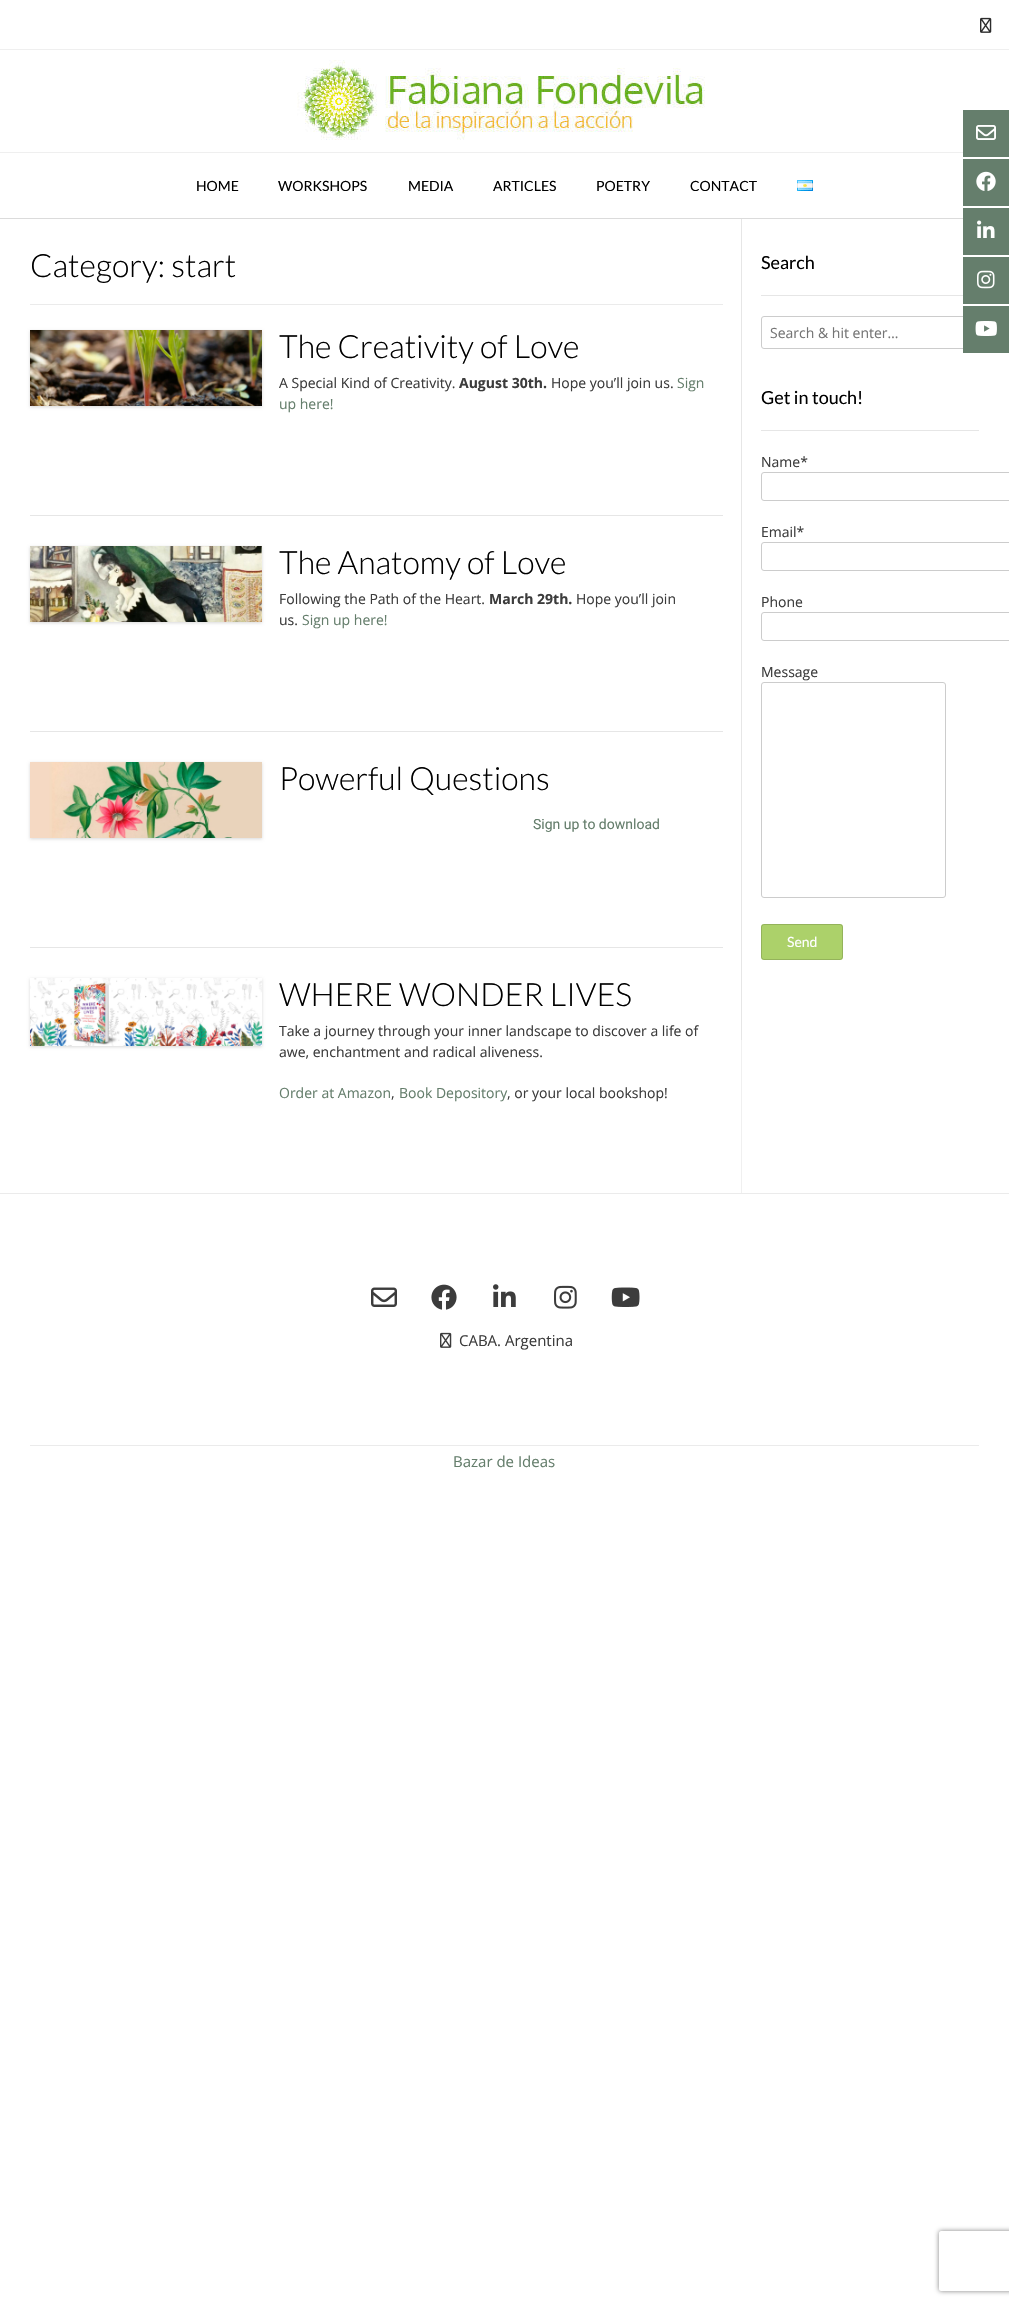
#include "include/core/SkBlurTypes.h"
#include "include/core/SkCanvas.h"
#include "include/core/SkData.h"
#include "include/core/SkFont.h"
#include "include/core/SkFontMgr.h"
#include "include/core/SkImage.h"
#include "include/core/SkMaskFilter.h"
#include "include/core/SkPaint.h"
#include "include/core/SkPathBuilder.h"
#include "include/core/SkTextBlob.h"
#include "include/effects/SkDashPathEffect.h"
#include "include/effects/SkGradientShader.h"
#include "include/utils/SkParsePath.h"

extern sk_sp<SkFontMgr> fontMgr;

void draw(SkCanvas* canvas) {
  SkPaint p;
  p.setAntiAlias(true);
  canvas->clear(SK_ColorWHITE);
  p.setColor(SkColorSetRGB(240, 240, 240));
  canvas->drawRect(SkRect::MakeLTRB(741, 1040, 742, 1193), p);
  p.setColor(SkColorSetRGB(219, 219, 219));
  canvas->drawRect(SkRect::MakeLTRB(0, 218, 963, 219), p);
  p.setColor(SkColorSetRGB(239, 239, 239));
  canvas->drawRect(SkRect::MakeLTRB(0, 49, 1009, 50), p);
  canvas->drawImageRect(SkImages::DeferredFromEncodedData(SkData::MakeFromFileName("images/1.png")), SkRect::MakeLTRB(980, 17, 992, 33), SkSamplingOptions());
  canvas->drawImageRect(SkImages::DeferredFromEncodedData(SkData::MakeFromFileName("images/2.png")), SkRect::MakeLTRB(297, 60, 705, 140), SkSamplingOptions());
  canvas->drawRect(SkRect::MakeLTRB(0, 152, 963, 153), p);
  canvas->drawImageRect(SkImages::DeferredFromEncodedData(SkData::MakeFromFileName("images/3.png")), SkRect::MakeLTRB(797, 180, 813, 191), SkSamplingOptions());
  p.setColor(SkColorSetRGB(235, 235, 235));
  canvas->drawRect(SkRect::MakeLTRB(30, 304, 723, 305), p);
  p.setColor(SkColorSetRGB(230, 230, 230));
  canvas->drawRect(SkRect::MakeLTRB(30, 515, 723, 516), p);
  p.setColor(SkColorSetARGB(38, 0, 0, 0));
  p.setMaskFilter(SkMaskFilter::MakeBlur(kNormal_SkBlurStyle, 1.5f));
  canvas->drawRect(SkRect::MakeLTRB(30, 331, 262, 407), p);
  p.setMaskFilter(nullptr);
  canvas->drawImageRect(SkImages::DeferredFromEncodedData(SkData::MakeFromFileName("images/4.png")), SkRect::MakeLTRB(30, 330, 262, 406), SkSamplingOptions());
  p.setColor(SkColorSetRGB(230, 230, 230));
  canvas->drawRect(SkRect::MakeLTRB(30, 731, 723, 732), p);
  p.setColor(SkColorSetARGB(38, 0, 0, 0));
  p.setMaskFilter(SkMaskFilter::MakeBlur(kNormal_SkBlurStyle, 1.5f));
  canvas->drawRect(SkRect::MakeLTRB(30, 547, 262, 623), p);
  p.setMaskFilter(nullptr);
  canvas->drawImageRect(SkImages::DeferredFromEncodedData(SkData::MakeFromFileName("images/5.png")), SkRect::MakeLTRB(30, 546, 262, 622), SkSamplingOptions());
  p.setColor(SkColorSetRGB(230, 230, 230));
  canvas->drawRect(SkRect::MakeLTRB(30, 947, 723, 948), p);
  p.setColor(SkColorSetARGB(38, 0, 0, 0));
  p.setMaskFilter(SkMaskFilter::MakeBlur(kNormal_SkBlurStyle, 1.5f));
  canvas->drawRect(SkRect::MakeLTRB(30, 763, 262, 839), p);
  p.setMaskFilter(nullptr);
  canvas->drawImageRect(SkImages::DeferredFromEncodedData(SkData::MakeFromFileName("images/6.png")), SkRect::MakeLTRB(30, 762, 262, 838), SkSamplingOptions());
  p.setMaskFilter(SkMaskFilter::MakeBlur(kNormal_SkBlurStyle, 1.5f));
  canvas->drawRect(SkRect::MakeLTRB(30, 979, 262, 1047), p);
  p.setMaskFilter(nullptr);
  canvas->drawImageRect(SkImages::DeferredFromEncodedData(SkData::MakeFromFileName("images/7.png")), SkRect::MakeLTRB(30, 978, 262, 1046), SkSamplingOptions());
  p.setColor(SkColorSetRGB(230, 230, 230));
  canvas->drawRect(SkRect::MakeLTRB(741, 219, 742, 1040), p);
  canvas->drawRect(SkRect::MakeLTRB(761, 295, 963, 296), p);
  p.setStyle(SkPaint::kStroke_Style);
  p.setStrokeWidth(1);
  p.setColor(SkColorSetRGB(204, 204, 204));
  canvas->drawRoundRect(SkRect::MakeLTRB(761.5f, 316.5f, 978.5f, 348.5f), 2.5f, 2.5f, p);
  p.setStyle(SkPaint::kFill_Style);
  p.setColor(SkColorSetRGB(230, 230, 230));
  canvas->drawRect(SkRect::MakeLTRB(761, 430, 979, 431), p);
  p.setStyle(SkPaint::kStroke_Style);
  p.setColor(SkColorSetRGB(204, 204, 204));
  canvas->drawRoundRect(SkRect::MakeLTRB(761.5f, 472.5f, 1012.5f, 500.5f), 2.5f, 2.5f, p);
  canvas->drawRoundRect(SkRect::MakeLTRB(761.5f, 542.5f, 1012.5f, 570.5f), 2.5f, 2.5f, p);
  canvas->drawRoundRect(SkRect::MakeLTRB(761.5f, 612.5f, 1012.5f, 640.5f), 2.5f, 2.5f, p);
  canvas->drawRoundRect(SkRect::MakeLTRB(761.5f, 682.5f, 945.5f, 897.5f), 2.5f, 2.5f, p);
  p.setStyle(SkPaint::kFill_Style);
  p.setColor(SkColorSetRGB(172, 209, 106));
  canvas->drawRoundRect(SkRect::MakeLTRB(761, 924, 843, 960), 3, 3, p);
  p.setStyle(SkPaint::kStroke_Style);
  p.setColor(SkColorSetARGB(36, 0, 0, 0));
  canvas->drawRoundRect(SkRect::MakeLTRB(761.5f, 924.5f, 842.5f, 959.5f), 2.5f, 2.5f, p);
  p.setStyle(SkPaint::kFill_Style);
  p.setColor(SkColorSetRGB(235, 235, 235));
  canvas->drawRect(SkRect::MakeLTRB(0, 1193, 1009, 1194), p);
  canvas->drawImageRect(SkImages::DeferredFromEncodedData(SkData::MakeFromFileName("images/8.png")), SkRect::MakeLTRB(371, 1287, 397, 1307), SkSamplingOptions());
  canvas->drawImageRect(SkImages::DeferredFromEncodedData(SkData::MakeFromFileName("images/9.png")), SkRect::MakeLTRB(431, 1284, 457, 1310), SkSamplingOptions());
  canvas->drawImageRect(SkImages::DeferredFromEncodedData(SkData::MakeFromFileName("images/10.png")), SkRect::MakeLTRB(493, 1284, 516, 1307), SkSamplingOptions());
  canvas->drawImageRect(SkImages::DeferredFromEncodedData(SkData::MakeFromFileName("images/11.png")), SkRect::MakeLTRB(554, 1285, 577, 1309), SkSamplingOptions());
  canvas->drawImageRect(SkImages::DeferredFromEncodedData(SkData::MakeFromFileName("images/12.png")), SkRect::MakeLTRB(611, 1287, 640, 1307), SkSamplingOptions());
  canvas->drawImageRect(SkImages::DeferredFromEncodedData(SkData::MakeFromFileName("images/13.png")), SkRect::MakeLTRB(440, 1332, 452, 1348), SkSamplingOptions());
  p.setColor(SkColorSetRGB(101, 126, 108));
  canvas->drawRect(SkRect::MakeLTRB(963, 110, 1009, 157), p);
  canvas->drawImageRect(SkImages::DeferredFromEncodedData(SkData::MakeFromFileName("images/14.png")), SkRect::MakeLTRB(976, 125, 996, 140), SkSamplingOptions());
  canvas->drawRect(SkRect::MakeLTRB(963, 159, 1009, 206), p);
  canvas->drawImageRect(SkImages::DeferredFromEncodedData(SkData::MakeFromFileName("images/15.png")), SkRect::MakeLTRB(976, 171, 996, 191), SkSamplingOptions());
  canvas->drawRect(SkRect::MakeLTRB(963, 208, 1009, 255), p);
  canvas->drawImageRect(SkImages::DeferredFromEncodedData(SkData::MakeFromFileName("images/16.png")), SkRect::MakeLTRB(977, 220, 995, 238), SkSamplingOptions());
  canvas->drawRect(SkRect::MakeLTRB(963, 257, 1009, 304), p);
  canvas->drawImageRect(SkImages::DeferredFromEncodedData(SkData::MakeFromFileName("images/17.png")), SkRect::MakeLTRB(977, 270, 995, 289), SkSamplingOptions());
  canvas->drawRect(SkRect::MakeLTRB(963, 306, 1009, 353), p);
  canvas->drawImageRect(SkImages::DeferredFromEncodedData(SkData::MakeFromFileName("images/18.png")), SkRect::MakeLTRB(975, 321, 997, 336), SkSamplingOptions());
  p.setColor(SkColorSetRGB(235, 235, 235));
  canvas->drawRect(SkRect::MakeLTRB(30, 1445, 979, 1446), p);
  canvas->save();
  canvas->clipPath(SkPathBuilder(SkPathFillType::kEvenOdd).moveTo(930, 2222).lineTo(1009, 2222).lineTo(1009, 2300).lineTo(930, 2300).close().moveTo(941, 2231).lineTo(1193, 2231).cubicTo(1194, 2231, 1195, 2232, 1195, 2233).lineTo(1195, 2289).cubicTo(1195, 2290, 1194, 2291, 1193, 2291).lineTo(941, 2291).cubicTo(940, 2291, 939, 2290, 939, 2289).lineTo(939, 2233).cubicTo(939, 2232, 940, 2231, 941, 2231).close().detach(), true);
  p.setColor(SkColorSetRGB(128, 128, 128));
  p.setMaskFilter(SkMaskFilter::MakeBlur(kNormal_SkBlurStyle, 2.5f));
  canvas->drawRoundRect(SkRect::MakeLTRB(939, 2231, 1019, 2291), 2, 2, p);
  p.setMaskFilter(nullptr);
  canvas->restore();
  SkFont font1(fontMgr->matchFamilyStyle("Lato", SkFontStyle::Normal()), 14);
  font1.setSubpixel(true);
  p.setColor(SK_ColorBLACK);
  canvas->drawString("HOME", 196, 191, font1, p);
  canvas->drawString("WORKSHOPS", 278, 191, font1, p);
  canvas->drawString("MEDIA", 408, 191, font1, p);
  canvas->drawString("ARTICLES", 493, 191, font1, p);
  canvas->drawString("POETRY", 596, 191, font1, p);
  canvas->drawString("CONTACT", 690, 191, font1, p);
  SkFont font2(fontMgr->matchFamilyStyle("Lato", SkFontStyle(300, SkFontStyle::kNormal_Width, SkFontStyle::kUpright_Slant)), 32);
  font2.setSubpixel(true);
  canvas->drawString("Category: start", 30, 277, font2, p);
  canvas->drawString("The Creativity of Love", 279, 358, font2, p);
  SkFont font3(fontMgr->matchFamilyStyle("Open Sans", SkFontStyle::Normal()), 14);
  font3.setSubpixel(true);
  p.setColor(SkColorSetRGB(60, 60, 60));
  canvas->drawString("A Special Kind of Creativity.", 279, 388, font3, p);
  SkFont font4(fontMgr->matchFamilyStyle("Open Sans", SkFontStyle::Bold()), 14);
  font4.setSubpixel(true);
  canvas->drawString("August 30th.", 459, 388, font4, p);
  canvas->drawString("Hope you’ll join us.", 551, 388, font3, p);
  p.setColor(SkColorSetRGB(101, 126, 108));
  canvas->drawString("Sign", 677, 388, font3, p);
  canvas->drawString("up here!", 279, 409, font3, p);
  p.setColor(SK_ColorBLACK);
  canvas->drawString("The Anatomy of Love", 279, 574, font2, p);
  p.setColor(SkColorSetRGB(60, 60, 60));
  canvas->drawString("Following the Path of the Heart.", 279, 604, font3, p);
  canvas->drawString("March 29th.", 489, 604, font4, p);
  canvas->drawString("Hope you’ll join", 576, 604, font3, p);
  canvas->drawString("us.", 279, 625, font3, p);
  p.setColor(SkColorSetRGB(101, 126, 108));
  canvas->drawString("Sign up here!", 302, 625, font3, p);
  p.setColor(SK_ColorBLACK);
  canvas->drawString("Powerful Questions", 279, 790, font2, p);
  SkFont font5(fontMgr->matchFamilyStyle("Roboto", SkFontStyle::Normal()), 14);
  font5.setSubpixel(true);
  p.setColor(SkColorSetRGB(101, 126, 108));
  canvas->drawString("Sign up to download", 533, 829, font5, p);
  p.setColor(SK_ColorBLACK);
  canvas->drawString("WHERE WONDER LIVES", 279, 1006, font2, p);
  p.setColor(SkColorSetRGB(60, 60, 60));
  canvas->drawString("Take a journey through your inner landscape to discover a life of", 279, 1036, font3, p);
  canvas->drawString("awe, enchantment and radical aliveness.", 279, 1057, font3, p);
  p.setColor(SkColorSetRGB(101, 126, 108));
  canvas->drawString("Order at Amazon", 279, 1098, font3, p);
  p.setColor(SkColorSetRGB(60, 60, 60));
  canvas->drawString(",", 391, 1098, font3, p);
  p.setColor(SkColorSetRGB(101, 126, 108));
  canvas->drawString("Book Depository", 399, 1098, font3, p);
  p.setColor(SkColorSetRGB(60, 60, 60));
  canvas->drawString(", or your local bookshop!", 507, 1098, font3, p);
  SkFont font6(fontMgr->matchFamilyStyle("Lato", SkFontStyle::Normal()), 18);
  font6.setSubpixel(true);
  p.setColor(SK_ColorBLACK);
  canvas->drawString("Search", 761, 269, font6, p);
  p.setColor(SkColorSetRGB(117, 117, 117));
  canvas->drawString("Search & hit enter…", 770, 338, font3, p);
  p.setColor(SK_ColorBLACK);
  canvas->drawString("Get in touch!", 761, 404, font6, p);
  p.setColor(SkColorSetRGB(60, 60, 60));
  canvas->drawString("Name*", 761, 467, font3, p);
  canvas->drawString("Email*", 761, 537, font3, p);
  canvas->drawString("Phone", 761, 607, font3, p);
  canvas->drawString("Message", 761, 677, font3, p);
  p.setColor(SK_ColorWHITE);
  canvas->drawString("Send", 787, 947, font1, p);
  SkFont font7(fontMgr->matchFamilyStyle("Open Sans", SkFontStyle::Normal()), 15);
  font7.setSubpixel(true);
  p.setColor(SkColorSetRGB(60, 60, 60));
  canvas->drawString("CABA. Argentina", 459, 1346, font7, p);
  p.setColor(SkColorSetRGB(101, 126, 108));
  canvas->drawString("Bazar de Ideas", 453, 1467, font7, p);
}
